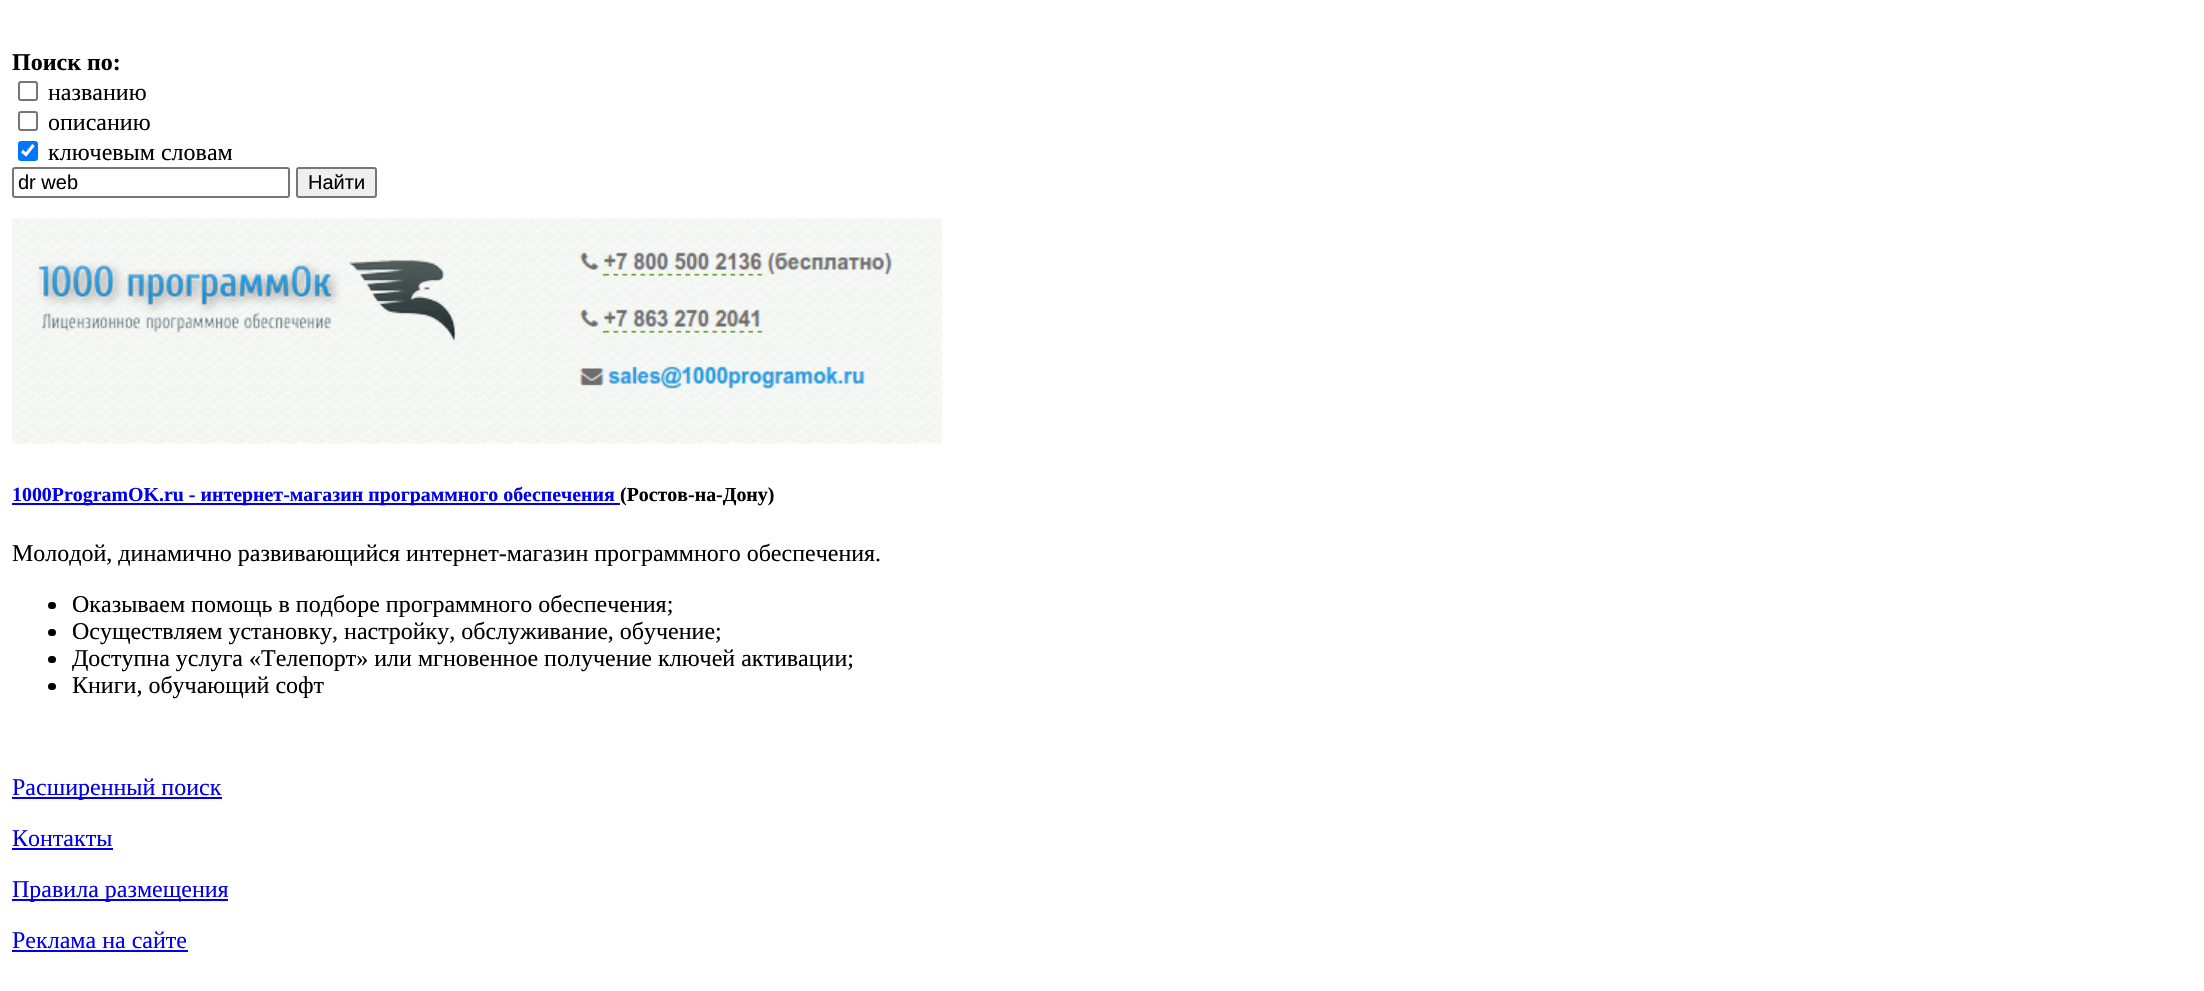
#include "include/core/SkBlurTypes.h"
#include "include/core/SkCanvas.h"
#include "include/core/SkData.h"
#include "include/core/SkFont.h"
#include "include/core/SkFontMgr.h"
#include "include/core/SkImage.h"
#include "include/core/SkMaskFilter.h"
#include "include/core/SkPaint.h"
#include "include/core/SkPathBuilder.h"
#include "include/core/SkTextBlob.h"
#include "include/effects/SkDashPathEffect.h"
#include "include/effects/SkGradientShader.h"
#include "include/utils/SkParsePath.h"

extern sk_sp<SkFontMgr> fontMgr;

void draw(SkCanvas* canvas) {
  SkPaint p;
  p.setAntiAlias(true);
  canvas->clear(SK_ColorWHITE);
  p.setStyle(SkPaint::kStroke_Style);
  p.setStrokeWidth(2);
  p.setColor(SkColorSetRGB(118, 118, 118));
  canvas->drawRoundRect(SkRect::MakeLTRB(19, 82, 37, 100), 2, 2, p);
  canvas->drawRoundRect(SkRect::MakeLTRB(19, 112, 37, 130), 2, 2, p);
  p.setStyle(SkPaint::kFill_Style);
  p.setColor(SkColorSetRGB(0, 117, 255));
  canvas->drawRoundRect(SkRect::MakeLTRB(18, 141, 38, 161), 3, 3, p);
  p.setStyle(SkPaint::kStroke_Style);
  p.setStrokeWidth(3.1f);
  p.setColor(SK_ColorWHITE);
  canvas->drawPath(SkPathBuilder().moveTo(22, 151).lineTo(26, 154.5f).lineTo(33.5f, 145).detach(), p);
  p.setStrokeWidth(2);
  p.setColor(SkColorSetRGB(118, 118, 118));
  canvas->drawRoundRect(SkRect::MakeLTRB(13, 168, 289, 197), 2, 2, p);
  p.setStyle(SkPaint::kFill_Style);
  p.setColor(SkColorSetRGB(239, 239, 239));
  canvas->drawRoundRect(SkRect::MakeLTRB(297, 168, 376, 197), 2, 2, p);
  p.setStyle(SkPaint::kStroke_Style);
  p.setColor(SkColorSetRGB(118, 118, 118));
  canvas->drawRoundRect(SkRect::MakeLTRB(297, 168, 376, 197), 2, 2, p);
  canvas->drawImageRect(SkImages::DeferredFromEncodedData(SkData::MakeFromFileName("images/1.png")), SkRect::MakeLTRB(12, 218, 942, 444), SkSamplingOptions());
  p.setStyle(SkPaint::kFill_Style);
  p.setColor(SkColorSetRGB(0, 0, 238));
  canvas->drawRect(SkRect::MakeLTRB(12, 503, 620, 505), p);
  p.setColor(SK_ColorBLACK);
  canvas->drawRoundRect(SkRect::MakeLTRB(48, 602, 56, 609), 3.5f, 3.5f, p);
  canvas->drawRoundRect(SkRect::MakeLTRB(48, 629, 56, 636), 3.5f, 3.5f, p);
  canvas->drawRoundRect(SkRect::MakeLTRB(48, 656, 56, 663), 3.5f, 3.5f, p);
  canvas->drawRoundRect(SkRect::MakeLTRB(48, 683, 56, 690), 3.5f, 3.5f, p);
  p.setColor(SkColorSetRGB(0, 0, 238));
  canvas->drawRect(SkRect::MakeLTRB(12, 797, 222, 799), p);
  canvas->drawRect(SkRect::MakeLTRB(12, 848, 113, 850), p);
  canvas->drawRect(SkRect::MakeLTRB(12, 899, 228, 901), p);
  canvas->drawRect(SkRect::MakeLTRB(12, 950, 188, 952), p);
  SkFont font1(fontMgr->matchFamilyStyle("Liberation Serif", SkFontStyle::Bold()), 24);
  font1.setSubpixel(true);
  p.setColor(SK_ColorBLACK);
  canvas->drawString("Поиск по:", 12, 70, font1, p);
  SkFont font2(fontMgr->matchFamilyStyle("Liberation Serif", SkFontStyle::Normal()), 24);
  font2.setSubpixel(true);
  canvas->drawString("названию", 48, 100, font2, p);
  canvas->drawString("описанию", 48, 130, font2, p);
  canvas->drawString("ключевым словам", 48, 160, font2, p);
  SkFont font3(fontMgr->matchFamilyStyle("Liberation Sans", SkFontStyle::Normal()), 20);
  font3.setSubpixel(true);
  canvas->drawString("dr web", 18, 189, font3, p);
  canvas->drawString("Найти", 308, 189, font3, p);
  SkFont font4(fontMgr->matchFamilyStyle("Liberation Serif", SkFontStyle::Bold()), 19.9f);
  font4.setSubpixel(true);
  p.setColor(SkColorSetRGB(0, 0, 238));
  canvas->drawString("1000ProgramOK.ru - интернет-магазин программного обеспечения", 12, 501, font4, p);
  p.setColor(SK_ColorBLACK);
  canvas->drawString("(Ростов-на-Дону)", 620, 501, font4, p);
  canvas->drawString("Молодой, динамично развивающийся интернет-магазин программного обеспечения.", 12, 561, font2, p);
  canvas->drawString("Оказываем помощь в подборе программного обеспечения;", 72, 612, font2, p);
  canvas->drawString("Осуществляем установку, настройку, обслуживание, обучение;", 72, 639, font2, p);
  canvas->drawString("Доступна услуга «Телепорт» или мгновенное получение ключей активации;", 72, 666, font2, p);
  canvas->drawString("Книги, обучающий софт", 72, 693, font2, p);
  p.setColor(SkColorSetRGB(0, 0, 238));
  canvas->drawString("Расширенный поиск", 12, 795, font2, p);
  canvas->drawString("Контакты", 12, 846, font2, p);
  canvas->drawString("Правила размещения", 12, 897, font2, p);
  canvas->drawString("Реклама на сайте", 12, 948, font2, p);
}
